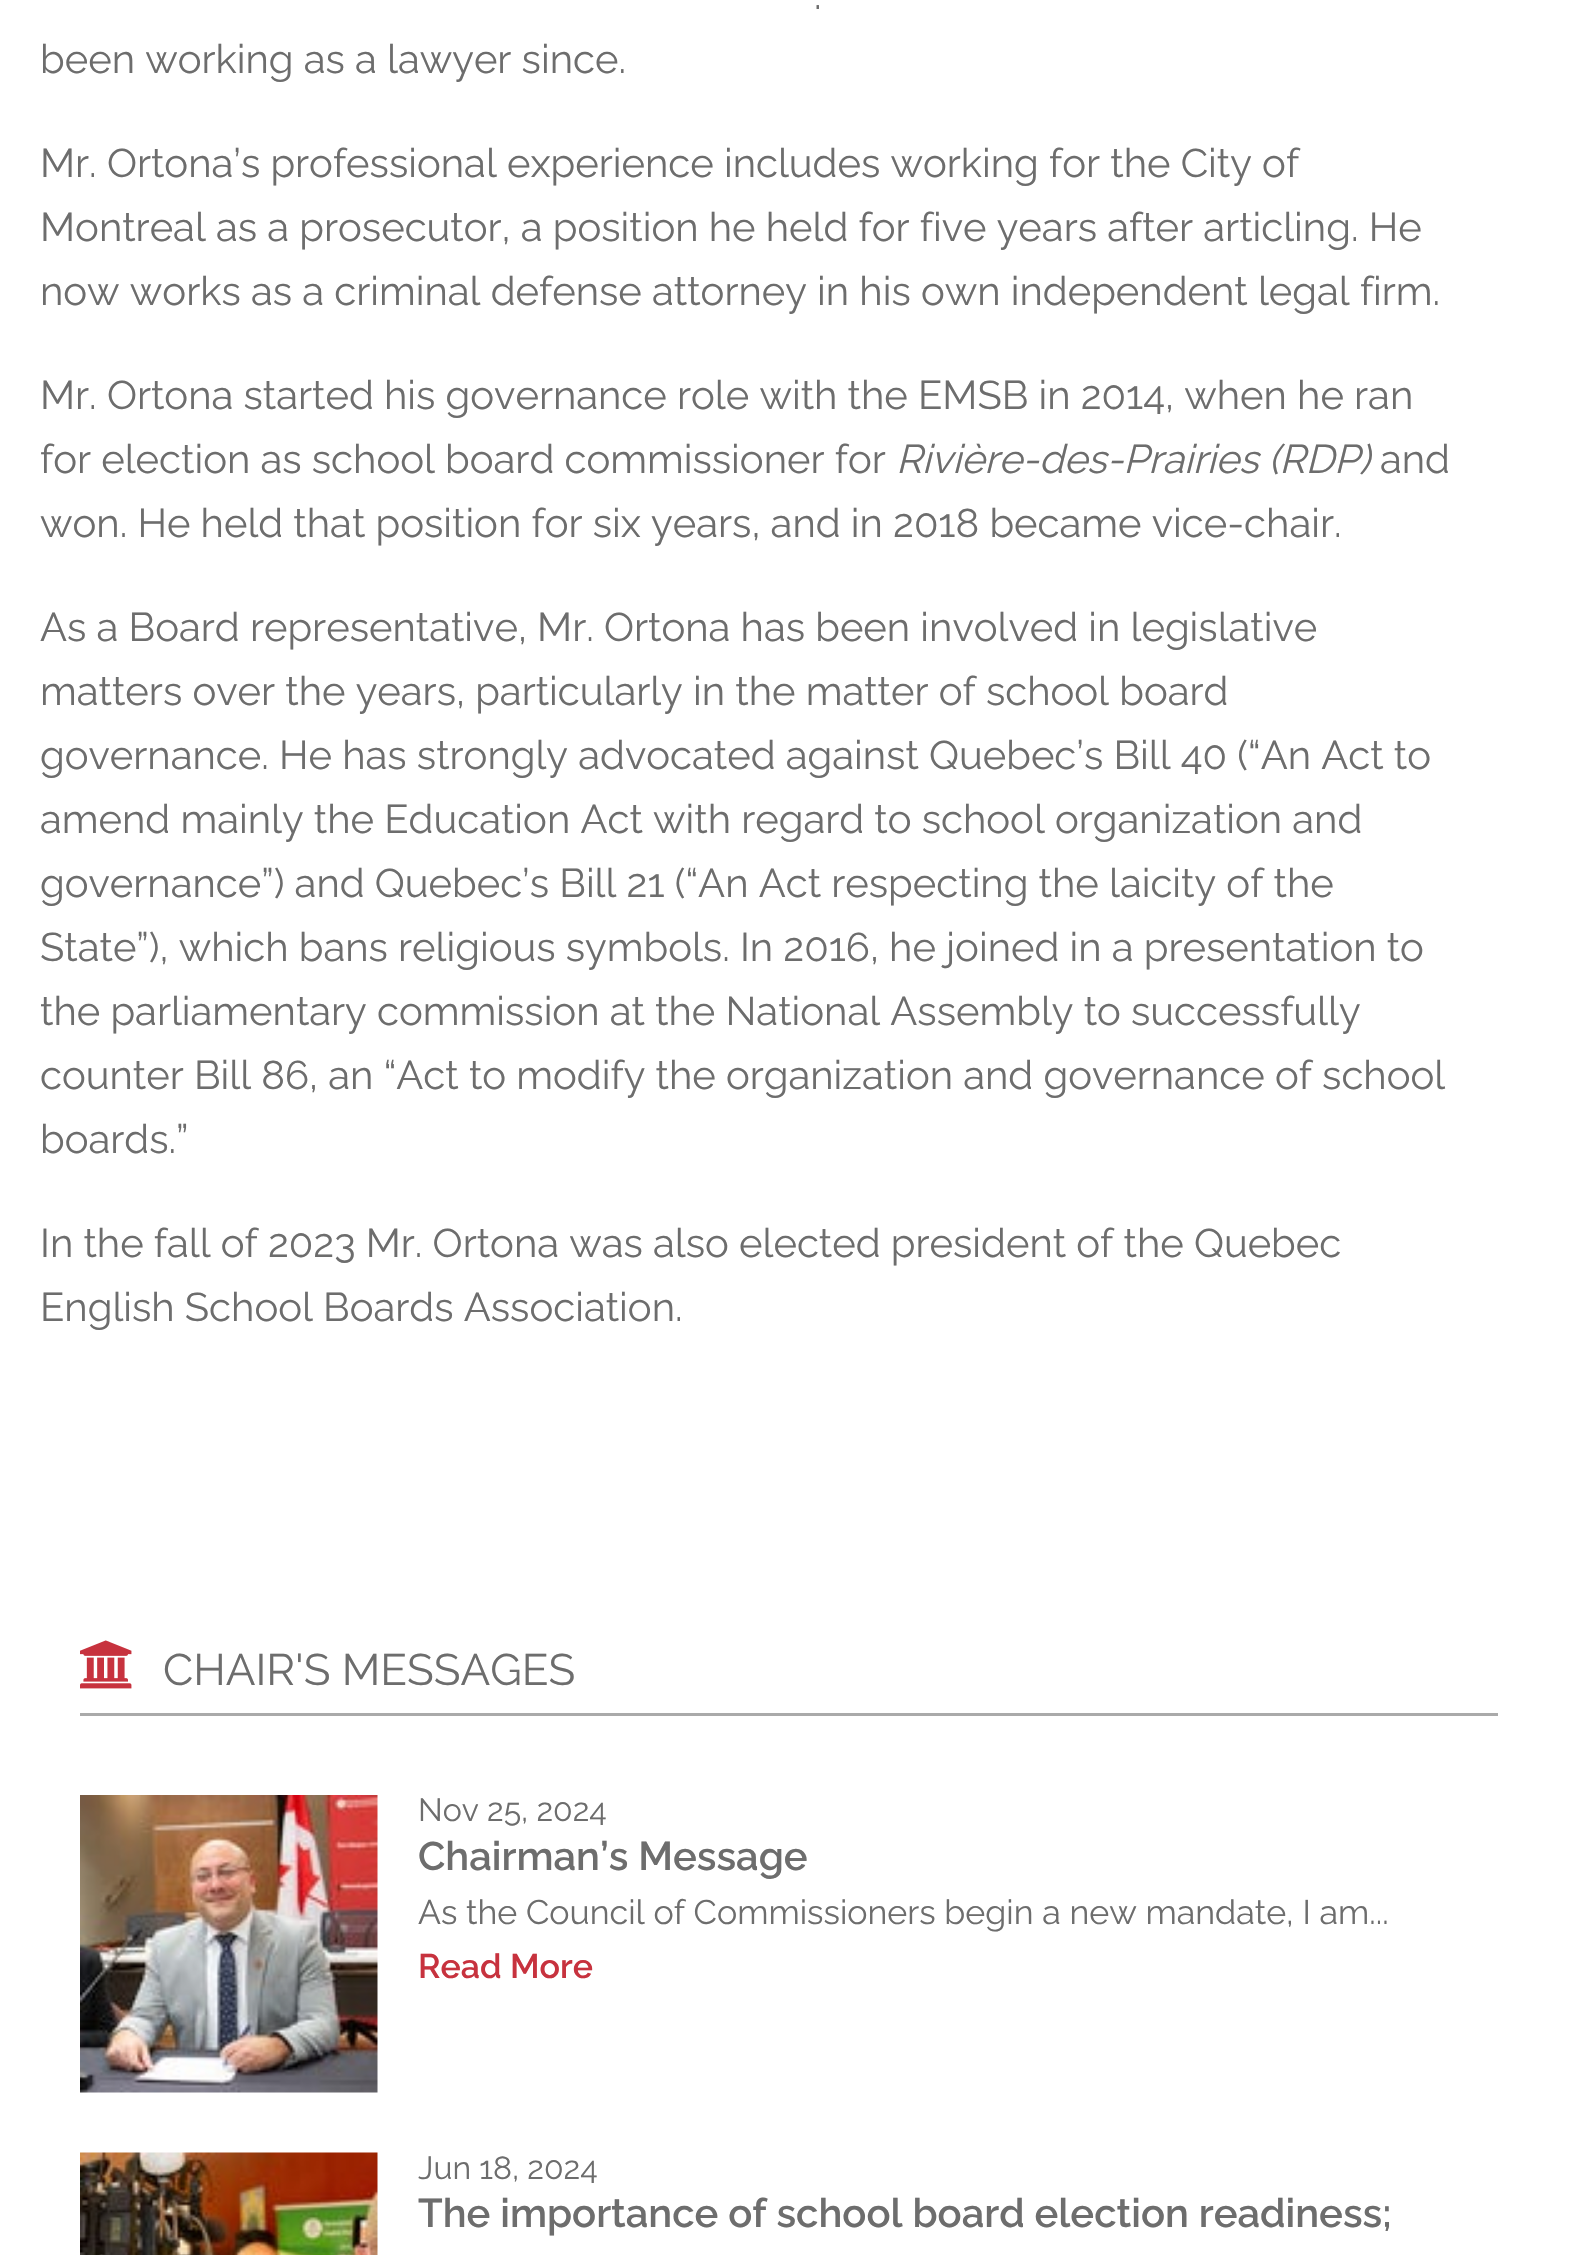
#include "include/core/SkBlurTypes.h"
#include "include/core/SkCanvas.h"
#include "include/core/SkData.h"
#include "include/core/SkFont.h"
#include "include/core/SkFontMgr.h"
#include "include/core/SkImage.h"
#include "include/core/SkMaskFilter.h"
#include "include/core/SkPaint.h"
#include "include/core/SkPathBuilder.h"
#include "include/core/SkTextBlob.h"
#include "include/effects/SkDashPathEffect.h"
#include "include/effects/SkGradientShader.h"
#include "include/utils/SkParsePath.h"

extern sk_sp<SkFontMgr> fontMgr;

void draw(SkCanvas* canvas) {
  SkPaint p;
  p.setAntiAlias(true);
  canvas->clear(SK_ColorWHITE);
  p.setColor(SkColorSetRGB(170, 170, 170));
  canvas->drawRect(SkRect::MakeLTRB(80, 1713, 1498, 1716), p);
  canvas->drawImageRect(SkImages::DeferredFromEncodedData(SkData::MakeFromFileName("images/1.png")), SkRect::MakeLTRB(80, 1640, 132, 1689), SkSamplingOptions());
  canvas->drawImageRect(SkImages::DeferredFromEncodedData(SkData::MakeFromFileName("images/2.png")), SkRect::MakeLTRB(80, 1795, 378, 2093), SkSamplingOptions());
  canvas->drawImageRect(SkImages::DeferredFromEncodedData(SkData::MakeFromFileName("images/3.png")), SkRect::MakeLTRB(80, 2152, 378, 2255), SkSamplingOptions());
  SkFont font1(fontMgr->matchFamilyStyle("Raleway", SkFontStyle::Normal()), 40);
  font1.setSubpixel(true);
  p.setColor(SkColorSetRGB(109, 109, 109));
  canvas->drawString(".", 814, 9, font1, p);
  canvas->drawString("been working as a lawyer since.", 40, 73, font1, p);
  canvas->drawString("Mr. Ortona’s professional experience includes working for the City of", 40, 177, font1, p);
  canvas->drawString("Montreal as a prosecutor, a position he held for five years after articling. He", 40, 241, font1, p);
  canvas->drawString("now works as a criminal defense attorney in his own independent legal firm.", 40, 305, font1, p);
  canvas->drawString("Mr. Ortona started his governance role with the EMSB in 2014, when he ran", 40, 409, font1, p);
  canvas->drawString("for election as school board commissioner for", 40, 473, font1, p);
  SkFont font2(fontMgr->matchFamilyStyle("Raleway", SkFontStyle::Italic()), 40);
  font2.setSubpixel(true);
  canvas->drawString("Rivière-des-Prairies (RDP)", 896, 473, font2, p);
  canvas->drawString("and", 1380, 473, font1, p);
  canvas->drawString("won. He held that position for six years, and in 2018 became vice-chair.", 40, 537, font1, p);
  canvas->drawString("As a Board representative, Mr. Ortona has been involved in legislative", 40, 641, font1, p);
  canvas->drawString("matters over the years, particularly in the matter of school board", 40, 705, font1, p);
  canvas->drawString("governance. He has strongly advocated against Quebec’s Bill 40 (“An Act to", 40, 769, font1, p);
  canvas->drawString("amend mainly the Education Act with regard to school organization and", 40, 833, font1, p);
  canvas->drawString("governance”) and Quebec’s Bill 21 (“An Act respecting the laicity of the", 40, 897, font1, p);
  canvas->drawString("State”), which bans religious symbols. In 2016, he joined in a presentation to", 40, 961, font1, p);
  canvas->drawString("the parliamentary commission at the National Assembly to successfully", 40, 1025, font1, p);
  canvas->drawString("counter Bill 86, an “Act to modify the organization and governance of school", 40, 1089, font1, p);
  canvas->drawString("boards.”", 40, 1153, font1, p);
  canvas->drawString("In the fall of 2023 Mr. Ortona was also elected president of the Quebec", 40, 1257, font1, p);
  canvas->drawString("English School Boards Association.", 40, 1321, font1, p);
  SkFont font3(fontMgr->matchFamilyStyle("Raleway", SkFontStyle::Normal()), 44);
  font3.setSubpixel(true);
  canvas->drawString("CHAIR'S MESSAGES", 163, 1685, font3, p);
  SkFont font4(fontMgr->matchFamilyStyle("Raleway", SkFontStyle::Normal()), 32);
  font4.setSubpixel(true);
  canvas->drawString("Nov 25, 2024", 418, 1821, font4, p);
  SkFont font5(fontMgr->matchFamilyStyle("Raleway", SkFontStyle(600, SkFontStyle::kNormal_Width, SkFontStyle::kUpright_Slant)), 40);
  font5.setSubpixel(true);
  canvas->drawString("Chairman’s Message", 418, 1870, font5, p);
  SkFont font6(fontMgr->matchFamilyStyle("Raleway", SkFontStyle::Normal()), 34);
  font6.setSubpixel(true);
  canvas->drawString("As the Council of Commissioners begin a new mandate, I am...", 418, 1924, font6, p);
  SkFont font7(fontMgr->matchFamilyStyle("Raleway", SkFontStyle(600, SkFontStyle::kNormal_Width, SkFontStyle::kUpright_Slant)), 34);
  font7.setSubpixel(true);
  p.setColor(SkColorSetRGB(199, 50, 62));
  canvas->drawString("Read More", 418, 1978, font7, p);
  p.setColor(SkColorSetRGB(109, 109, 109));
  canvas->drawString("Jun 18, 2024", 418, 2179, font4, p);
  canvas->drawString("The importance of school board election readiness;", 418, 2227, font5, p);
}
